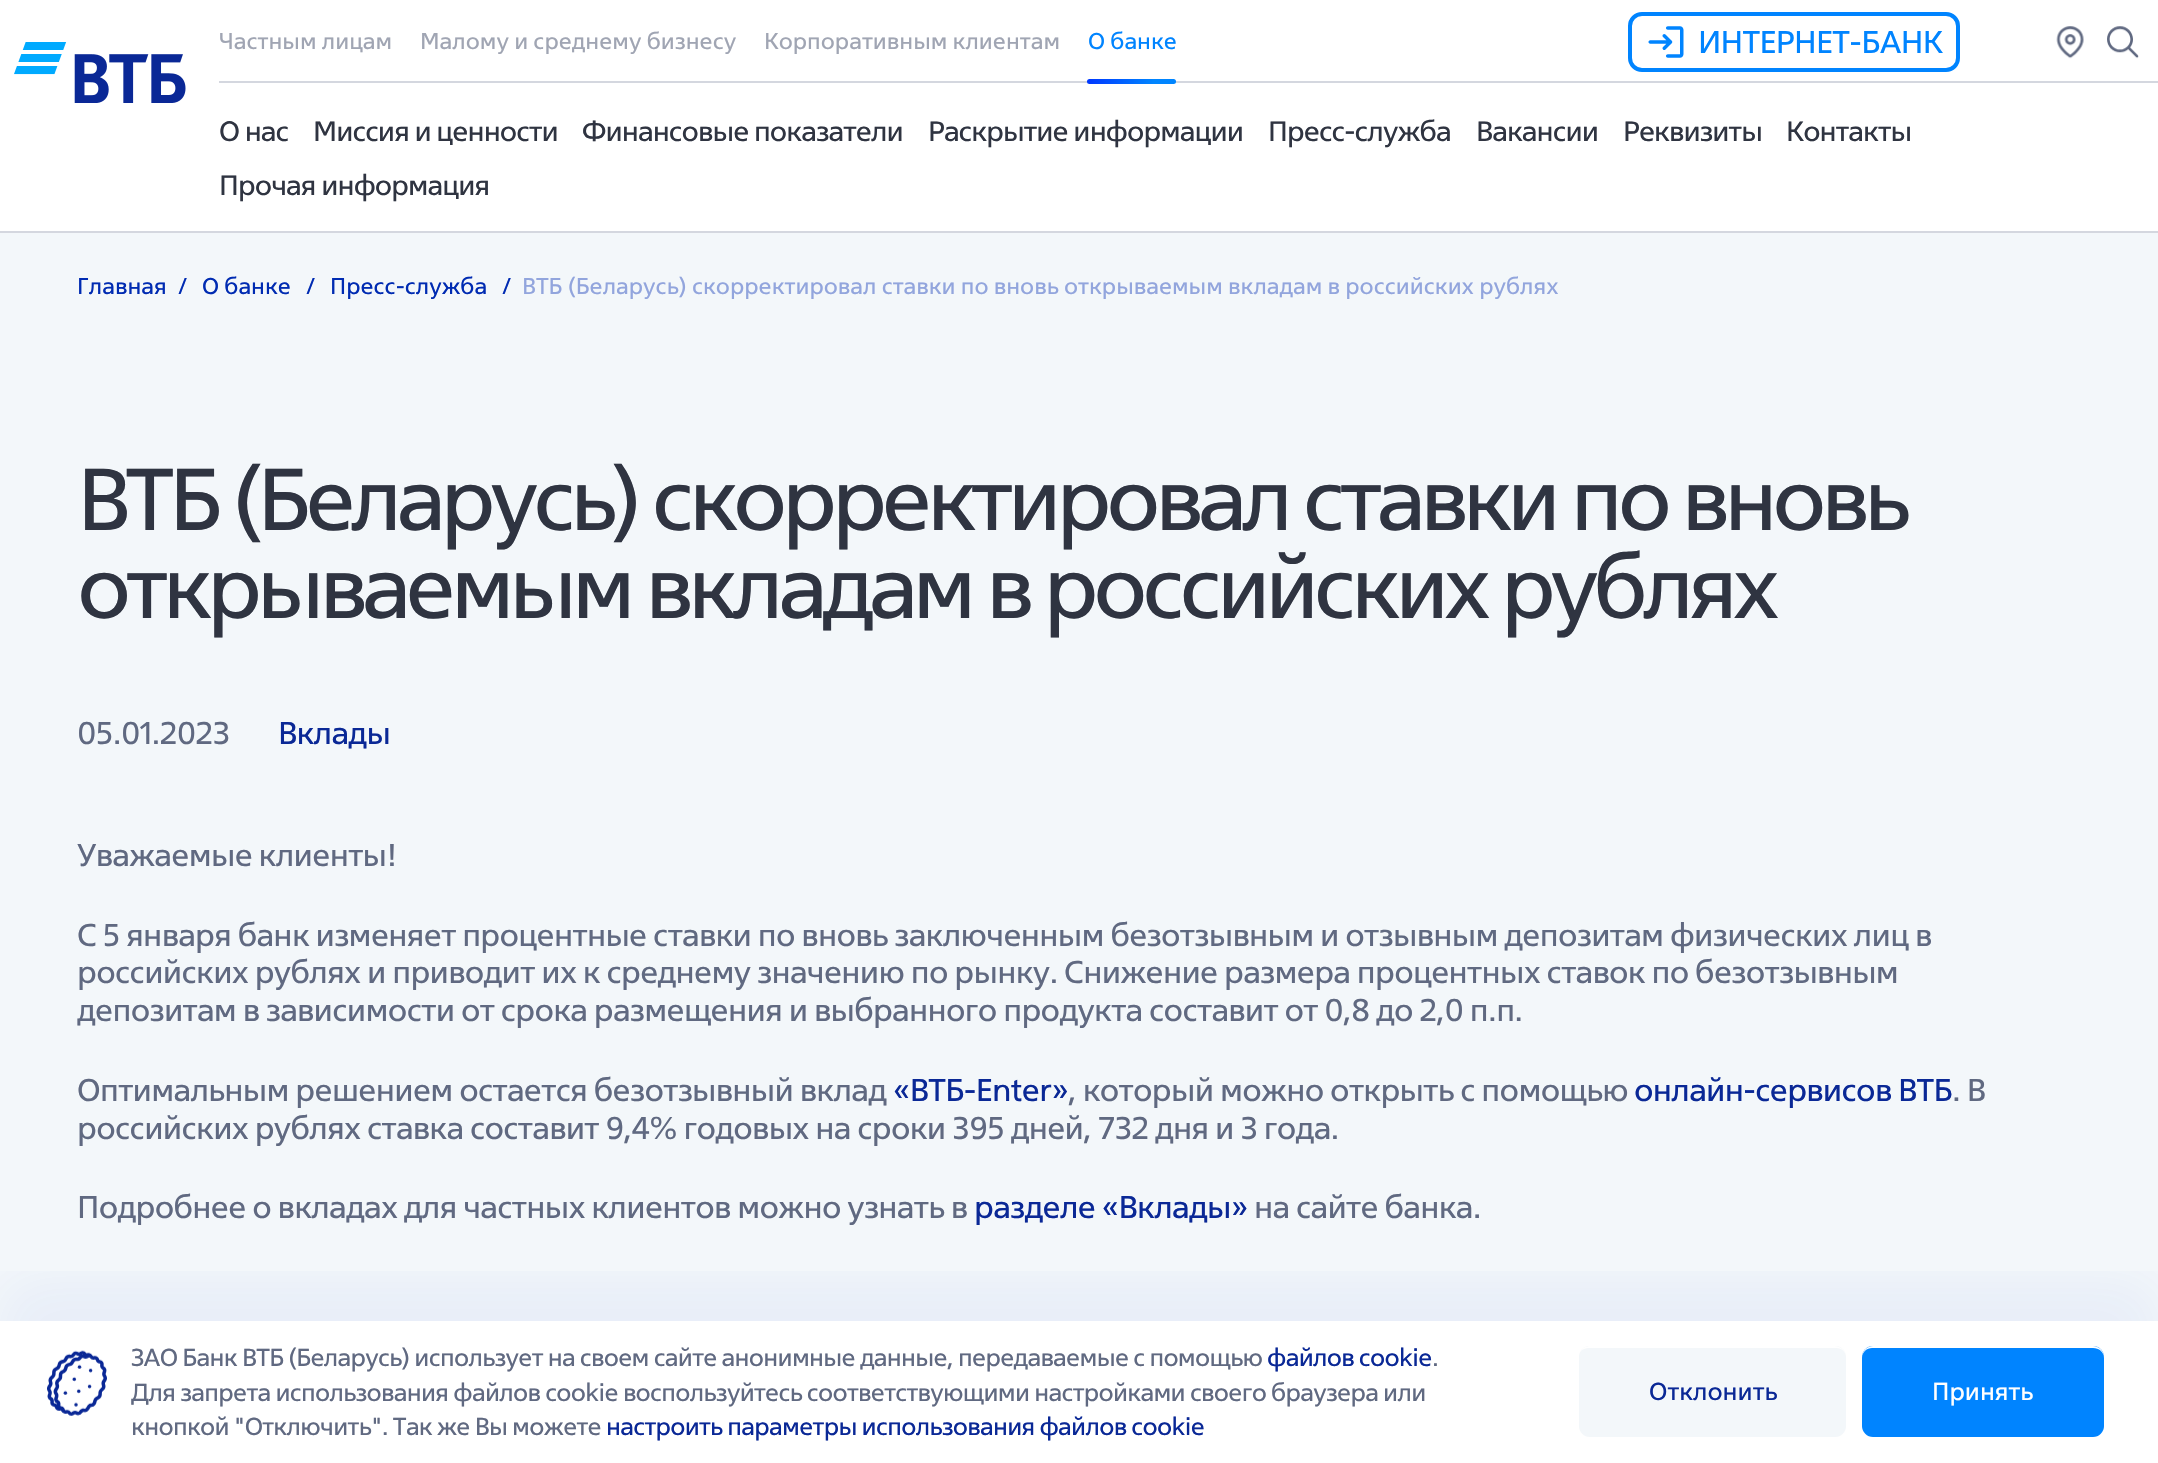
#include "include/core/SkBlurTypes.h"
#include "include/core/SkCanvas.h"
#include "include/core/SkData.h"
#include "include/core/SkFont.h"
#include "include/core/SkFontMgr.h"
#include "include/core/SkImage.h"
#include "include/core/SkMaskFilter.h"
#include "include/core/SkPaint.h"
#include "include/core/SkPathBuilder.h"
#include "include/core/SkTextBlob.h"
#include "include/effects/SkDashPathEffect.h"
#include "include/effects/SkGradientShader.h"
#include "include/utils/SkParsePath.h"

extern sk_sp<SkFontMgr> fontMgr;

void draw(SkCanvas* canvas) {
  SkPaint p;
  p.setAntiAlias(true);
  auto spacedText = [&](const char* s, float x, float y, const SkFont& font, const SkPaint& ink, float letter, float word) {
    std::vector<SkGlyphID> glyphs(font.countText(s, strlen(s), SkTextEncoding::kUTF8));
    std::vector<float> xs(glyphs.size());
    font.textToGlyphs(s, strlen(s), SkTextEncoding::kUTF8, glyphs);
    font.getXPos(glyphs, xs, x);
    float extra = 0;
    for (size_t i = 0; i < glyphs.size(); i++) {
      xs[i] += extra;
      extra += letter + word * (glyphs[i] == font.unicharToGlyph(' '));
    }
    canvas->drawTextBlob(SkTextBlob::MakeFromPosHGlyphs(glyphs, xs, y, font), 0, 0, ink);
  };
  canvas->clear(SkColorSetRGB(243, 247, 250));
  p.setColor(SK_ColorWHITE);
  canvas->drawRect(SkRect::MakeLTRB(0, 0, 2158, 231), p);
  p.setColor(SkColorSetRGB(212, 215, 223));
  canvas->drawRect(SkRect::MakeLTRB(0, 231, 2158, 233), p);
  canvas->drawImageRect(SkImages::DeferredFromEncodedData(SkData::MakeFromFileName("images/1.png")), SkRect::MakeLTRB(14, 42, 186, 103), SkSamplingOptions());
  canvas->drawRect(SkRect::MakeLTRB(219, 81, 2158, 83), p);
  {
    const SkColor colors[] = {SkColorSetRGB(0, 55, 255), SkColorSetRGB(0, 133, 255)};
    const float stops[] = {0, 0.75f};
    const SkPoint ends[] = {{1087, 81}, {1176, 81}};
    p.setShader(SkGradientShader::MakeLinear(ends, colors, stops, 2, SkTileMode::kClamp));
    p.setAlpha(255);
  }
  canvas->drawRoundRect(SkRect::MakeLTRB(1087, 79, 1176, 84), 2.5f, 2.5f, p);
  p.setStyle(SkPaint::kStroke_Style);
  p.setStrokeWidth(4);
  p.setShader(nullptr);
  p.setColor(SkColorSetRGB(0, 132, 255));
  canvas->drawRoundRect(SkRect::MakeLTRB(1630, 14, 1958, 70), 12, 12, p);
  canvas->drawImageRect(SkImages::DeferredFromEncodedData(SkData::MakeFromFileName("images/2.png")), SkRect::MakeLTRB(1648, 26, 1684, 58), SkSamplingOptions());
  canvas->drawImageRect(SkImages::DeferredFromEncodedData(SkData::MakeFromFileName("images/3.png")), SkRect::MakeLTRB(2056, 26, 2084, 59), SkSamplingOptions());
  canvas->drawImageRect(SkImages::DeferredFromEncodedData(SkData::MakeFromFileName("images/4.png")), SkRect::MakeLTRB(2107, 26, 2139, 59), SkSamplingOptions());
  p.setStyle(SkPaint::kFill_Style);
  p.setColor(SK_ColorWHITE);
  canvas->drawRect(SkRect::MakeLTRB(0, 1321, 2158, 1463), p);
  canvas->save();
  canvas->clipRect(SkRect::MakeLTRB(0, 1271, 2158, 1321));
  p.setColor(SkColorSetARGB(13, 11, 67, 218));
  p.setMaskFilter(SkMaskFilter::MakeBlur(kNormal_SkBlurStyle, 30));
  canvas->drawRect(SkRect::MakeLTRB(0, 1279, 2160, 1425), p);
  p.setMaskFilter(nullptr);
  canvas->restore();
  canvas->drawImageRect(SkImages::DeferredFromEncodedData(SkData::MakeFromFileName("images/5.png")), SkRect::MakeLTRB(47, 1350, 107, 1416), SkSamplingOptions());
  p.setColor(SkColorSetRGB(243, 247, 250));
  canvas->drawRoundRect(SkRect::MakeLTRB(1579, 1346, 1846, 1437), 11, 11, p);
  p.setColor(SK_ColorWHITE);
  canvas->drawPath(SkPathBuilder().moveTo(1589, 1348).lineTo(1836, 1348).cubicTo(1842, 1348, 1846, 1352, 1846, 1358).lineTo(1846, 1357).cubicTo(1846, 1351, 1841, 1346, 1835, 1346).lineTo(1590, 1346).cubicTo(1586, 1346, 1582, 1348, 1580, 1352).cubicTo(1582, 1349, 1586, 1348, 1589, 1348).close().detach(), p);
  p.setColor(SkColorSetRGB(0, 132, 255));
  canvas->drawRoundRect(SkRect::MakeLTRB(1862, 1346, 2104, 1437), 11, 11, p);
  p.setColor(SK_ColorWHITE);
  canvas->drawPath(SkPathBuilder().moveTo(1872, 1348).lineTo(2093, 1348).cubicTo(2099, 1348, 2104, 1352, 2104, 1358).lineTo(2104, 1357).cubicTo(2104, 1351, 2099, 1346, 2093, 1346).lineTo(1873, 1346).cubicTo(1867, 1346, 1862, 1351, 1862, 1357).lineTo(1862, 1358).cubicTo(1862, 1352, 1867, 1348, 1872, 1348).close().detach(), p);
  SkFont font1(fontMgr->matchFamilyStyle("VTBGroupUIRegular", SkFontStyle::Normal()), 22.75f);
  font1.setSubpixel(true);
  p.setColor(SkColorSetRGB(160, 165, 179));
  canvas->drawString("Частным лицам", 219, 49, font1, p);
  canvas->drawString("Малому и среднему бизнесу", 420, 49, font1, p);
  canvas->drawString("Корпоративным клиентам", 764, 49, font1, p);
  p.setColor(SkColorSetRGB(0, 132, 255));
  canvas->drawString("О банке", 1088, 49, font1, p);
  SkFont font2(fontMgr->matchFamilyStyle("VTBGroupUIRegular", SkFontStyle::Normal()), 31.5f);
  font2.setSubpixel(true);
  spacedText("ИНТЕРНЕТ-БАНК", 1698, 53, font2, p, -0.7f, 0);
  SkFont font3(fontMgr->matchFamilyStyle("VTBGroupUIRegular", SkFontStyle::Normal()), 28);
  font3.setSubpixel(true);
  p.setColor(SkColorSetRGB(47, 52, 65));
  spacedText("О нас", 219, 141, font3, p, -0.9f, 0);
  spacedText("Миссия и ценности", 313, 141, font3, p, -0.9f, 0);
  spacedText("Финансовые показатели", 582, 141, font3, p, -0.9f, 0);
  spacedText("Раскрытие информации", 928, 141, font3, p, -0.9f, 0);
  spacedText("Пресс-служба", 1268, 141, font3, p, -0.9f, 0);
  spacedText("Вакансии", 1476, 141, font3, p, -0.9f, 0);
  spacedText("Реквизиты", 1623, 141, font3, p, -0.9f, 0);
  spacedText("Контакты", 1786, 141, font3, p, -0.9f, 0);
  spacedText("Прочая информация", 219, 195, font3, p, -0.9f, 0);
  p.setColor(SkColorSetRGB(0, 43, 178));
  canvas->drawString("Главная", 77, 294, font1, p);
  canvas->drawString("/", 179, 294, font1, p);
  canvas->drawString("О банке", 202, 294, font1, p);
  canvas->drawString("/", 307, 294, font1, p);
  canvas->drawString("Пресс-служба", 330, 294, font1, p);
  canvas->drawString("/", 503, 294, font1, p);
  p.setColor(SkColorSetRGB(146, 165, 221));
  canvas->drawString("ВТБ (Беларусь) скорректировал ставки по вновь открываемым вкладам в российских рублях", 522, 294, font1, p);
  SkFont font4(fontMgr->matchFamilyStyle("VTBGroupUIRegular", SkFontStyle::Normal()), 87.5f);
  font4.setSubpixel(true);
  p.setColor(SkColorSetRGB(47, 52, 65));
  spacedText("ВТБ (Беларусь) скорректировал ставки по вновь", 77, 530, font4, p, -5.25f, 0);
  spacedText("открываемым вкладам в российских рублях", 77, 618, font4, p, -5.25f, 0);
  p.setColor(SkColorSetRGB(96, 105, 129));
  spacedText("05.01.2023", 77, 744, font2, p, -0.7f, 0);
  p.setColor(SkColorSetRGB(10, 40, 150));
  spacedText("Вклады", 278, 744, font2, p, -0.7f, 0);
  p.setColor(SkColorSetRGB(96, 105, 129));
  spacedText("Уважаемые клиенты!", 77, 866, font2, p, -0.7f, 0);
  spacedText("С 5 января банк изменяет процентные ставки по вновь заключенным безотзывным и отзывным депозитам физических лиц в", 77, 946, font2, p, -0.7f, 0);
  spacedText("российских рублях и приводит их к среднему значению по рынку. Снижение размера процентных ставок по безотзывным", 77, 983, font2, p, -0.7f, 0);
  spacedText("депозитам в зависимости от срока размещения и выбранного продукта составит от 0,8 до 2,0 п.п.", 77, 1021, font2, p, -0.7f, 0);
  spacedText("Оптимальным решением остается безотзывный вклад", 77, 1101, font2, p, -0.7f, 0);
  p.setColor(SkColorSetRGB(10, 40, 150));
  spacedText("«ВТБ-Enter»", 893, 1101, font2, p, -0.7f, 0);
  p.setColor(SkColorSetRGB(96, 105, 129));
  spacedText(", который можно открыть с помощью", 1068, 1101, font2, p, -0.7f, 0);
  p.setColor(SkColorSetRGB(10, 40, 150));
  spacedText("онлайн-сервисов ВТБ", 1634, 1101, font2, p, -0.7f, 0);
  p.setColor(SkColorSetRGB(96, 105, 129));
  spacedText(". В", 1952, 1101, font2, p, -0.7f, 0);
  spacedText("российских рублях ставка составит 9,4% годовых на сроки 395 дней, 732 дня и 3 года.", 77, 1139, font2, p, -0.7f, 0);
  spacedText("Подробнее о вкладах для частных клиентов можно узнать в", 77, 1218, font2, p, -0.7f, 0);
  p.setColor(SkColorSetRGB(10, 40, 150));
  spacedText("разделе «Вклады»", 974, 1218, font2, p, -0.7f, 0);
  p.setColor(SkColorSetRGB(96, 105, 129));
  spacedText("на сайте банка.", 1254, 1218, font2, p, -0.7f, 0);
  SkFont font5(fontMgr->matchFamilyStyle("VTBGroupUIRegular", SkFontStyle::Normal()), 24.5f);
  font5.setSubpixel(true);
  spacedText("ЗАО Банк ВТБ (Беларусь) использует на своем сайте анонимные данные, передаваемые с помощью", 131, 1366, font5, p, -0.7f, 0);
  p.setColor(SkColorSetRGB(10, 40, 150));
  spacedText("файлов cookie", 1267, 1366, font5, p, -0.7f, 0);
  p.setColor(SkColorSetRGB(96, 105, 129));
  spacedText(".", 1432, 1366, font5, p, -0.7f, 0);
  spacedText("Для запрета использования файлов cookie воспользуйтесь соответствующими настройками своего браузера или", 131, 1401, font5, p, -0.7f, 0);
  spacedText("кнопкой \"Отключить\". Так же Вы можете", 131, 1435, font5, p, -0.7f, 0);
  p.setColor(SkColorSetRGB(10, 40, 150));
  spacedText("настроить параметры использования файлов cookie", 606, 1435, font5, p, -0.7f, 0);
  canvas->drawString("Отклонить", 1649, 1400, font5, p);
  p.setColor(SK_ColorWHITE);
  canvas->drawString("Принять", 1932, 1400, font5, p);
}
